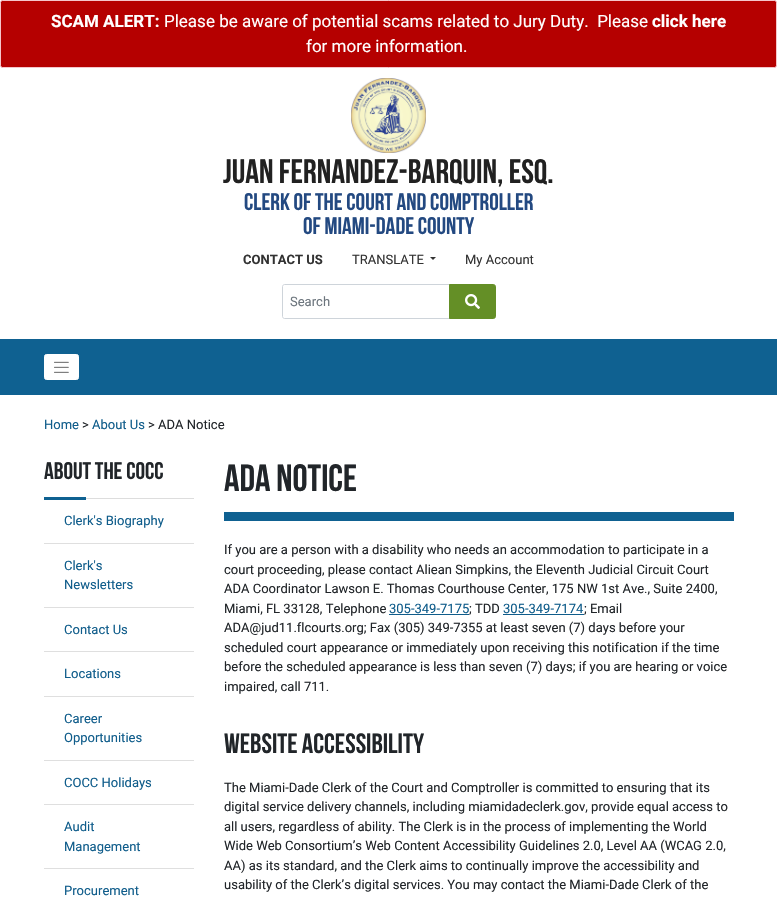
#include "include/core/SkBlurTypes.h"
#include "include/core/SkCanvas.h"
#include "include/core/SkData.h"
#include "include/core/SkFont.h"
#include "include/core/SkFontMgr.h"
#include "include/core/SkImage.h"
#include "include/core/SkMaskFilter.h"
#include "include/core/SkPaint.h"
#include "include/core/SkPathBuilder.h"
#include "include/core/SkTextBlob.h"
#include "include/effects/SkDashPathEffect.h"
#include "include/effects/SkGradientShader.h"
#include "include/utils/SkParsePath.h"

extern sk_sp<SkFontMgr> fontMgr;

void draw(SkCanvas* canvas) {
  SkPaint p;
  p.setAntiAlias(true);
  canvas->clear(SK_ColorWHITE);
  p.setColor(SkColorSetRGB(181, 0, 0));
  canvas->drawRoundRect(SkRect::MakeLTRB(0.5f, 0.5f, 776.5f, 67.5f), 2, 2, p);
  p.setStyle(SkPaint::kStroke_Style);
  p.setStrokeWidth(1);
  p.setColor(SkColorSetRGB(245, 198, 203));
  canvas->drawRoundRect(SkRect::MakeLTRB(0.5f, 0.5f, 776.5f, 67.5f), 2, 2, p);
  canvas->drawImageRect(SkImages::DeferredFromEncodedData(SkData::MakeFromFileName("images/1.png")), SkRect::MakeLTRB(351, 78, 426, 153), SkSamplingOptions());
  p.setStyle(SkPaint::kFill_Style);
  p.setColor(SkColorSetRGB(51, 51, 51));
  canvas->drawPath(SkPathBuilder().moveTo(430, 257).lineTo(436, 257).lineTo(433, 260).close().detach(), p);
  p.setStyle(SkPaint::kStroke_Style);
  p.setColor(SkColorSetRGB(206, 212, 218));
  canvas->drawPath(SkPathBuilder().moveTo(284.5f, 284.5f).lineTo(449.5f, 284.5f).lineTo(449.5f, 318.5f).lineTo(284.5f, 318.5f).cubicTo(283.5f, 318.5f, 282.5f, 317.5f, 282.5f, 316.5f).lineTo(282.5f, 286.5f).cubicTo(282.5f, 285.5f, 283.5f, 284.5f, 284.5f, 284.5f).close().detach(), p);
  p.setStyle(SkPaint::kFill_Style);
  p.setColor(SkColorSetRGB(100, 143, 38));
  canvas->drawPath(SkPathBuilder().moveTo(449.5f, 284.5f).lineTo(493.5f, 284.5f).cubicTo(494.5f, 284.5f, 495.5f, 285.5f, 495.5f, 286.5f).lineTo(495.5f, 316.5f).cubicTo(495.5f, 317.5f, 494.5f, 318.5f, 493.5f, 318.5f).lineTo(449.5f, 318.5f).close().detach(), p);
  p.setStyle(SkPaint::kStroke_Style);
  canvas->drawPath(SkPathBuilder().moveTo(449.5f, 284.5f).lineTo(493.5f, 284.5f).cubicTo(494.5f, 284.5f, 495.5f, 285.5f, 495.5f, 286.5f).lineTo(495.5f, 316.5f).cubicTo(495.5f, 317.5f, 494.5f, 318.5f, 493.5f, 318.5f).lineTo(449.5f, 318.5f).close().detach(), p);
  canvas->drawImageRect(SkImages::DeferredFromEncodedData(SkData::MakeFromFileName("images/2.png")), SkRect::MakeLTRB(465, 294, 480, 309), SkSamplingOptions());
  p.setStyle(SkPaint::kFill_Style);
  p.setColor(SkColorSetRGB(15, 97, 145));
  canvas->drawRect(SkRect::MakeLTRB(0, 339, 777, 395), p);
  p.setColor(SK_ColorWHITE);
  canvas->drawRoundRect(SkRect::MakeLTRB(44.5f, 354.5f, 78.5f, 379.5f), 2, 2, p);
  p.setStyle(SkPaint::kStroke_Style);
  canvas->drawRoundRect(SkRect::MakeLTRB(44.5f, 354.5f, 78.5f, 379.5f), 2, 2, p);
  canvas->drawImageRect(SkImages::DeferredFromEncodedData(SkData::MakeFromFileName("images/3.png")), SkRect::MakeLTRB(54, 361, 69, 373), SkSamplingOptions());
  p.setStyle(SkPaint::kFill_Style);
  p.setColor(SkColorSetRGB(221, 221, 221));
  canvas->drawRect(SkRect::MakeLTRB(86, 498, 194, 499), p);
  p.setColor(SkColorSetRGB(15, 97, 145));
  canvas->drawRect(SkRect::MakeLTRB(44, 497, 86, 500), p);
  p.setColor(SkColorSetRGB(223, 223, 223));
  canvas->drawRect(SkRect::MakeLTRB(44, 543, 194, 544), p);
  canvas->drawRect(SkRect::MakeLTRB(44, 607, 194, 608), p);
  canvas->drawRect(SkRect::MakeLTRB(44, 651, 194, 652), p);
  canvas->drawRect(SkRect::MakeLTRB(44, 696, 194, 697), p);
  canvas->drawRect(SkRect::MakeLTRB(44, 760, 194, 761), p);
  canvas->drawRect(SkRect::MakeLTRB(44, 804, 194, 805), p);
  canvas->drawRect(SkRect::MakeLTRB(44, 868, 194, 869), p);
  p.setColor(SkColorSetRGB(15, 97, 145));
  canvas->drawRect(SkRect::MakeLTRB(224, 512, 734, 521), p);
  p.setColor(SkColorSetRGB(16, 93, 139));
  canvas->drawRect(SkRect::MakeLTRB(389, 614, 469, 615), p);
  canvas->drawRect(SkRect::MakeLTRB(503, 614, 584, 615), p);
  SkFont font1(fontMgr->matchFamilyStyle("Roboto", SkFontStyle::Bold()), 17);
  font1.setSubpixel(true);
  p.setColor(SK_ColorWHITE);
  canvas->drawString("SCAM ALERT:", 51, 27, font1, p);
  SkFont font2(fontMgr->matchFamilyStyle("Roboto", SkFontStyle::Normal()), 17);
  font2.setSubpixel(true);
  canvas->drawString("Please be aware of potential scams related to Jury Duty.  Please", 164, 27, font2, p);
  canvas->drawString("click here", 652, 27, font1, p);
  canvas->drawString("for more information.", 306, 52, font2, p);
  SkFont font3(fontMgr->matchFamilyStyle("Bebas Neue", SkFontStyle::Bold()), 34);
  font3.setSubpixel(true);
  p.setColor(SkColorSetRGB(33, 33, 33));
  canvas->drawString("JUAN FERNANDEZ-BARQUIN, ESQ.", 223, 183, font3, p);
  SkFont font4(fontMgr->matchFamilyStyle("Bebas Neue", SkFontStyle::Bold()), 24);
  font4.setSubpixel(true);
  p.setColor(SkColorSetRGB(35, 73, 129));
  canvas->drawString("CLERK OF THE COURT AND COMPTROLLER", 244, 210, font4, p);
  canvas->drawString("OF MIAMI-DADE COUNTY", 303, 234, font4, p);
  SkFont font5(fontMgr->matchFamilyStyle("Roboto", SkFontStyle::Bold()), 13);
  font5.setSubpixel(true);
  p.setColor(SkColorSetRGB(51, 51, 51));
  canvas->drawString("CONTACT US", 243, 264, font5, p);
  SkFont font6(fontMgr->matchFamilyStyle("Roboto", SkFontStyle::Normal()), 13);
  font6.setSubpixel(true);
  canvas->drawString("TRANSLATE", 352, 264, font6, p);
  canvas->drawString("My Account", 465, 264, font6, p);
  p.setColor(SkColorSetRGB(108, 117, 125));
  canvas->drawString("Search", 290, 306, font6, p);
  p.setColor(SkColorSetRGB(16, 93, 139));
  canvas->drawString("Home", 44, 429, font6, p);
  p.setColor(SkColorSetRGB(33, 37, 41));
  canvas->drawString(">", 82, 429, font6, p);
  p.setColor(SkColorSetRGB(16, 93, 139));
  canvas->drawString("About Us", 92, 429, font6, p);
  p.setColor(SkColorSetRGB(33, 37, 41));
  canvas->drawString("> ADA Notice", 148, 429, font6, p);
  canvas->drawString("ABOUT THE COCC", 44, 479, font4, p);
  p.setColor(SkColorSetRGB(16, 93, 139));
  canvas->drawString("Clerk's Biography", 64, 525, font6, p);
  canvas->drawString("Clerk's", 64, 570, font6, p);
  canvas->drawString("Newsletters", 64, 589, font6, p);
  canvas->drawString("Contact Us", 64, 634, font6, p);
  canvas->drawString("Locations", 64, 678, font6, p);
  canvas->drawString("Career", 64, 723, font6, p);
  canvas->drawString("Opportunities", 64, 742, font6, p);
  canvas->drawString("COCC Holidays", 64, 787, font6, p);
  canvas->drawString("Audit", 64, 831, font6, p);
  canvas->drawString("Management", 64, 851, font6, p);
  canvas->drawString("Procurement", 64, 895, font6, p);
  SkFont font7(fontMgr->matchFamilyStyle("Bebas Neue", SkFontStyle::Bold()), 38);
  font7.setSubpixel(true);
  p.setColor(SkColorSetRGB(33, 37, 41));
  canvas->drawString("ADA NOTICE", 224, 491, font7, p);
  canvas->drawString("If you are a person with a disability who needs an accommodation to participate in a", 224, 554, font6, p);
  canvas->drawString("court proceeding, please contact Aliean Simpkins, the Eleventh Judicial Circuit Court", 224, 574, font6, p);
  canvas->drawString("ADA Coordinator Lawson E. Thomas Courthouse Center, 175 NW 1st Ave., Suite 2400,", 224, 593, font6, p);
  canvas->drawString("Miami, FL 33128, Telephone", 224, 613, font6, p);
  p.setColor(SkColorSetRGB(16, 93, 139));
  canvas->drawString("305-349-7175", 389, 613, font6, p);
  p.setColor(SkColorSetRGB(33, 37, 41));
  canvas->drawString("; TDD", 469, 613, font6, p);
  p.setColor(SkColorSetRGB(16, 93, 139));
  canvas->drawString("305-349-7174", 503, 613, font6, p);
  p.setColor(SkColorSetRGB(33, 37, 41));
  canvas->drawString("; Email", 584, 613, font6, p);
  canvas->drawString("ADA@jud11.flcourts.org; Fax (305) 349-7355 at least seven (7) days before your", 224, 632, font6, p);
  canvas->drawString("scheduled court appearance or immediately upon receiving this notification if the time", 224, 652, font6, p);
  canvas->drawString("before the scheduled appearance is less than seven (7) days; if you are hearing or voice", 224, 671, font6, p);
  canvas->drawString("impaired, call 711.", 224, 691, font6, p);
  SkFont font8(fontMgr->matchFamilyStyle("Bebas Neue", SkFontStyle::Bold()), 28);
  font8.setSubpixel(true);
  canvas->drawString("WEBSITE ACCESSIBILITY", 224, 753, font8, p);
  canvas->drawString("The Miami-Dade Clerk of the Court and Comptroller is committed to ensuring that its", 224, 792, font6, p);
  canvas->drawString("digital service delivery channels, including miamidadeclerk.gov, provide equal access to", 224, 811, font6, p);
  canvas->drawString("all users, regardless of ability. The Clerk is in the process of implementing the World", 224, 831, font6, p);
  canvas->drawString("Wide Web Consortium’s Web Content Accessibility Guidelines 2.0, Level AA (WCAG 2.0,", 224, 850, font6, p);
  canvas->drawString("AA) as its standard, and the Clerk aims to continually improve the accessibility and", 224, 870, font6, p);
  canvas->drawString("usability of the Clerk’s digital services. You may contact the Miami-Dade Clerk of the", 224, 889, font6, p);
}
